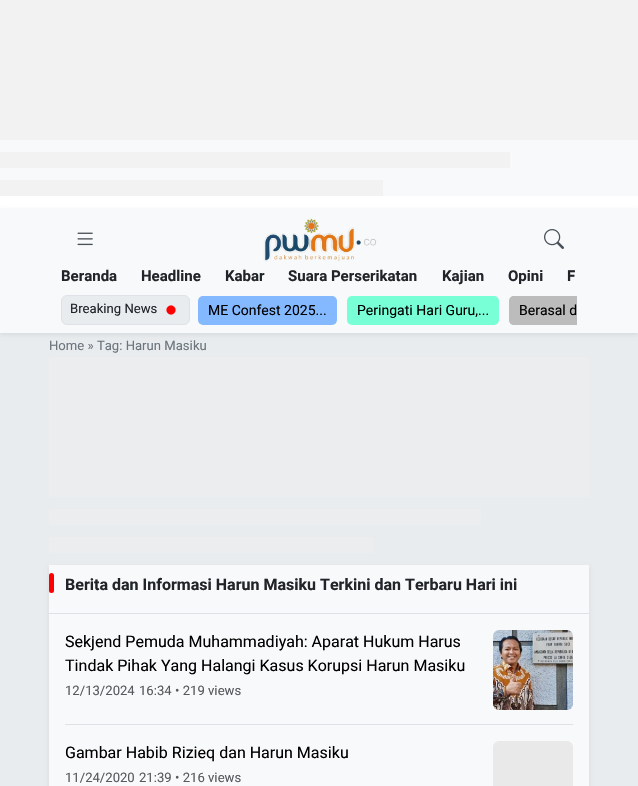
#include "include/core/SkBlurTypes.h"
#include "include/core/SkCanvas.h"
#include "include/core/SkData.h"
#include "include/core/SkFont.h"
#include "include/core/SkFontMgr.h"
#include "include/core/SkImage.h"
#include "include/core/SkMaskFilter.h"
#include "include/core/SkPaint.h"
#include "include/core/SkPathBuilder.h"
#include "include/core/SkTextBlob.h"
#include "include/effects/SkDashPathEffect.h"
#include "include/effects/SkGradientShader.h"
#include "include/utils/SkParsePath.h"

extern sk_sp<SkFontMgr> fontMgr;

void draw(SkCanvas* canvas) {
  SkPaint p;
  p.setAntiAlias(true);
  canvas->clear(SK_ColorWHITE);
  p.setColor(SkColorSetRGB(248, 249, 250));
  canvas->drawRect(SkRect::MakeLTRB(0, 140, 638, 196), p);
  {
    const SkColor colors[] = {SkColorSetRGB(242, 242, 242), SkColorSetRGB(246, 247, 247), SkColorSetRGB(241, 241, 241)};
    const float stops[] = {0.25f, 0.37f, 0.63f};
    const SkPoint ends[] = {{0, 70}, {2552, 70}};
    p.setShader(SkGradientShader::MakeLinear(ends, colors, stops, 3, SkTileMode::kClamp));
    p.setAlpha(255);
  }
  canvas->drawRect(SkRect::MakeLTRB(0, 0, 638, 140), p);
  {
    const SkColor colors[] = {SkColorSetRGB(242, 242, 242), SkColorSetRGB(246, 247, 247), SkColorSetRGB(241, 241, 241)};
    const float stops[] = {0.25f, 0.37f, 0.63f};
    const SkPoint ends[] = {{0, 160}, {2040, 160}};
    p.setShader(SkGradientShader::MakeLinear(ends, colors, stops, 3, SkTileMode::kClamp));
    p.setAlpha(255);
  }
  canvas->drawRect(SkRect::MakeLTRB(0, 152, 510, 168), p);
  {
    const SkColor colors[] = {SkColorSetRGB(242, 242, 242), SkColorSetRGB(246, 247, 247), SkColorSetRGB(241, 241, 241)};
    const float stops[] = {0.25f, 0.37f, 0.63f};
    const SkPoint ends[] = {{0, 188}, {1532, 188}};
    p.setShader(SkGradientShader::MakeLinear(ends, colors, stops, 3, SkTileMode::kClamp));
    p.setAlpha(255);
  }
  canvas->drawRect(SkRect::MakeLTRB(0, 180, 383, 196), p);
  p.setShader(nullptr);
  p.setColor(SkColorSetRGB(233, 236, 239));
  canvas->drawRect(SkRect::MakeLTRB(0, 333, 638, 786), p);
  p.setColor(SkColorSetARGB(18, 0, 0, 0));
  p.setMaskFilter(SkMaskFilter::MakeBlur(kNormal_SkBlurStyle, 2));
  canvas->drawRect(SkRect::MakeLTRB(0, 210, 638, 335), p);
  p.setMaskFilter(nullptr);
  p.setColor(SkColorSetRGB(248, 249, 250));
  canvas->drawRect(SkRect::MakeLTRB(0, 208, 638, 333), p);
  canvas->drawImageRect(SkImages::DeferredFromEncodedData(SkData::MakeFromFileName("images/1.png")), SkRect::MakeLTRB(77, 232, 93, 246), SkSamplingOptions());
  canvas->drawImageRect(SkImages::DeferredFromEncodedData(SkData::MakeFromFileName("images/2.png")), SkRect::MakeLTRB(263, 218, 377, 262), SkSamplingOptions());
  canvas->drawImageRect(SkImages::DeferredFromEncodedData(SkData::MakeFromFileName("images/3.png")), SkRect::MakeLTRB(544, 229, 564, 249), SkSamplingOptions());
  p.setColor(SkColorSetRGB(233, 236, 239));
  canvas->drawRoundRect(SkRect::MakeLTRB(61.5f, 295.5f, 189.5f, 324.5f), 5.5f, 5.5f, p);
  p.setStyle(SkPaint::kStroke_Style);
  p.setStrokeWidth(1);
  p.setColor(SkColorSetRGB(222, 226, 230));
  canvas->drawRoundRect(SkRect::MakeLTRB(61.5f, 295.5f, 189.5f, 324.5f), 5.5f, 5.5f, p);
  canvas->drawImageRect(SkImages::DeferredFromEncodedData(SkData::MakeFromFileName("images/4.png")), SkRect::MakeLTRB(166, 305, 176, 315), SkSamplingOptions());
  p.setStyle(SkPaint::kFill_Style);
  p.setColor(SkColorSetRGB(132, 185, 255));
  canvas->drawRoundRect(SkRect::MakeLTRB(198, 296, 337, 325), 5, 5, p);
  p.setColor(SkColorSetRGB(120, 255, 214));
  canvas->drawRoundRect(SkRect::MakeLTRB(347, 296, 499, 325), 5, 5, p);
  p.setColor(SkColorSetRGB(188, 188, 188));
  canvas->drawPath(SkPathBuilder().moveTo(514, 296).lineTo(577, 296).lineTo(577, 325).lineTo(514, 325).cubicTo(511, 325, 509, 323, 509, 320).lineTo(509, 301).cubicTo(509, 298, 511, 296, 514, 296).close().detach(), p);
  {
    const SkColor colors[] = {SkColorSetRGB(236, 237, 238), SkColorSetRGB(240, 241, 242), SkColorSetRGB(237, 237, 238)};
    const float stops[] = {0.25f, 0.37f, 0.63f};
    const SkPoint ends[] = {{49, 427}, {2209, 427}};
    p.setShader(SkGradientShader::MakeLinear(ends, colors, stops, 3, SkTileMode::kClamp));
    p.setAlpha(255);
  }
  canvas->drawRect(SkRect::MakeLTRB(49, 357, 589, 497), p);
  {
    const SkColor colors[] = {SkColorSetRGB(236, 237, 238), SkColorSetRGB(240, 241, 242), SkColorSetRGB(237, 237, 238)};
    const float stops[] = {0.25f, 0.37f, 0.63f};
    const SkPoint ends[] = {{49, 517}, {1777, 517}};
    p.setShader(SkGradientShader::MakeLinear(ends, colors, stops, 3, SkTileMode::kClamp));
    p.setAlpha(255);
  }
  canvas->drawRect(SkRect::MakeLTRB(49, 509, 481, 525), p);
  {
    const SkColor colors[] = {SkColorSetRGB(236, 237, 238), SkColorSetRGB(240, 241, 242), SkColorSetRGB(237, 237, 238)};
    const float stops[] = {0.25f, 0.37f, 0.63f};
    const SkPoint ends[] = {{49, 545}, {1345, 545}};
    p.setShader(SkGradientShader::MakeLinear(ends, colors, stops, 3, SkTileMode::kClamp));
    p.setAlpha(255);
  }
  canvas->drawRect(SkRect::MakeLTRB(49, 537, 373, 553), p);
  p.setShader(nullptr);
  p.setColor(SkColorSetARGB(18, 0, 0, 0));
  p.setMaskFilter(SkMaskFilter::MakeBlur(kNormal_SkBlurStyle, 2));
  canvas->drawRect(SkRect::MakeLTRB(49, 567, 589, 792), p);
  p.setMaskFilter(nullptr);
  p.setColor(SkColorSetRGB(248, 249, 250));
  canvas->drawRect(SkRect::MakeLTRB(49, 565, 589, 786), p);
  p.setColor(SkColorSetRGB(222, 226, 230));
  canvas->drawRect(SkRect::MakeLTRB(49, 613, 589, 614), p);
  p.setColor(SkColorSetRGB(255, 0, 0));
  canvas->drawRoundRect(SkRect::MakeLTRB(49, 573, 54, 593), 2.5f, 2.5f, p);
  p.setColor(SkColorSetRGB(222, 226, 230));
  canvas->drawRect(SkRect::MakeLTRB(65, 724, 573, 725), p);
  canvas->drawImageRect(SkImages::DeferredFromEncodedData(SkData::MakeFromFileName("images/5.png")), SkRect::MakeLTRB(493, 630, 573, 710), SkSamplingOptions());
  p.setColor(SkColorSetRGB(233, 233, 233));
  canvas->drawRoundRect(SkRect::MakeLTRB(493, 741, 573, 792), 6, 6, p);
  SkFont font1(fontMgr->matchFamilyStyle("Heebo", SkFontStyle::Bold()), 15);
  font1.setSubpixel(true);
  p.setColor(SkColorSetRGB(33, 37, 41));
  canvas->drawString("Beranda", 61, 281, font1, p);
  canvas->drawString("Headline", 141, 281, font1, p);
  canvas->drawString("Kabar", 225, 281, font1, p);
  canvas->drawString("Suara Perserikatan", 288, 281, font1, p);
  canvas->drawString("Kajian", 442, 281, font1, p);
  canvas->drawString("Opini", 508, 281, font1, p);
  canvas->drawString("F", 567, 281, font1, p);
  SkFont font2(fontMgr->matchFamilyStyle("Heebo", SkFontStyle::Normal()), 13.1f);
  font2.setSubpixel(true);
  canvas->drawString("Breaking News", 70, 313, font2, p);
  SkFont font3(fontMgr->matchFamilyStyle("Heebo", SkFontStyle::Normal()), 14);
  font3.setSubpixel(true);
  p.setColor(SK_ColorBLACK);
  canvas->drawString("ME Confest 2025...", 208, 315, font3, p);
  canvas->drawString("Peringati Hari Guru,...", 357, 315, font3, p);
  canvas->drawString("Berasal d", 519, 315, font3, p);
  p.setColor(SkColorSetRGB(108, 117, 125));
  canvas->drawString("Home » Tag: Harun Masiku", 49, 350, font2, p);
  SkFont font4(fontMgr->matchFamilyStyle("Heebo", SkFontStyle::Bold()), 16);
  font4.setSubpixel(true);
  p.setColor(SkColorSetRGB(33, 37, 41));
  canvas->drawString("Berita dan Informasi Harun Masiku Terkini dan Terbaru Hari ini", 65, 590, font4, p);
  SkFont font5(fontMgr->matchFamilyStyle("Heebo", SkFontStyle::Normal()), 16);
  font5.setSubpixel(true);
  p.setColor(SK_ColorBLACK);
  canvas->drawString("Sekjend Pemuda Muhammadiyah: Aparat Hukum Harus", 65, 647, font5, p);
  canvas->drawString("Tindak Pihak Yang Halangi Kasus Korupsi Harun Masiku", 65, 671, font5, p);
  p.setColor(SkColorSetRGB(87, 90, 93));
  canvas->drawString("12/13/2024", 65, 695, font2, p);
  canvas->drawString("16:34", 139, 695, font2, p);
  canvas->drawString("• 219 views", 175, 695, font2, p);
  p.setColor(SK_ColorBLACK);
  canvas->drawString("Gambar Habib Rizieq dan Harun Masiku", 65, 758, font5, p);
  p.setColor(SkColorSetRGB(87, 90, 93));
  canvas->drawString("11/24/2020", 65, 782, font2, p);
  canvas->drawString("21:39", 139, 782, font2, p);
  canvas->drawString("• 216 views", 175, 782, font2, p);
}
